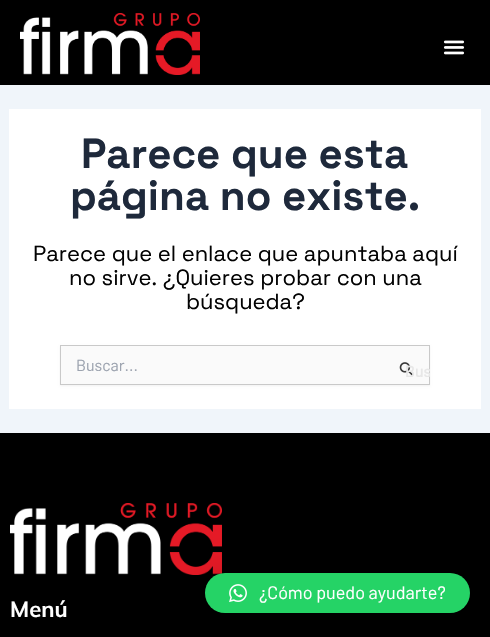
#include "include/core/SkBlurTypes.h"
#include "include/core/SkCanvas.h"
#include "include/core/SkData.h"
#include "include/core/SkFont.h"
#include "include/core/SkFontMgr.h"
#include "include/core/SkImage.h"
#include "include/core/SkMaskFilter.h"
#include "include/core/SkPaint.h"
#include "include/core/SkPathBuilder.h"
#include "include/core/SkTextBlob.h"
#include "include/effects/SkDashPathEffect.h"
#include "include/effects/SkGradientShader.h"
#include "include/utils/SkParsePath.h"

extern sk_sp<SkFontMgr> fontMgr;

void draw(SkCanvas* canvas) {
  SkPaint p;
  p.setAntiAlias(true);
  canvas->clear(SkColorSetRGB(240, 245, 250));
  p.setColor(SK_ColorBLACK);
  canvas->drawRect(SkRect::MakeLTRB(0, 0, 490, 85), p);
  canvas->drawImageRect(SkImages::DeferredFromEncodedData(SkData::MakeFromFileName("images/1.png")), SkRect::MakeLTRB(20, 13, 200, 75), SkSamplingOptions());
  canvas->drawImageRect(SkImages::DeferredFromEncodedData(SkData::MakeFromFileName("images/2.png")), SkRect::MakeLTRB(443, 40, 465, 55), SkSamplingOptions());
  p.setColor(SK_ColorWHITE);
  canvas->drawRect(SkRect::MakeLTRB(9, 109, 481, 409), p);
  p.setColor(SkColorSetARGB(13, 0, 0, 0));
  p.setMaskFilter(SkMaskFilter::MakeBlur(kNormal_SkBlurStyle, 1));
  canvas->drawRect(SkRect::MakeLTRB(60, 346, 430, 386), p);
  p.setMaskFilter(nullptr);
  p.setColor(SkColorSetRGB(250, 250, 250));
  canvas->drawRect(SkRect::MakeLTRB(60.5f, 345.5f, 429.5f, 384.5f), p);
  p.setStyle(SkPaint::kStroke_Style);
  p.setStrokeWidth(1);
  p.setColor(SkColorSetRGB(201, 201, 201));
  canvas->drawRect(SkRect::MakeLTRB(60.5f, 345.5f, 429.5f, 384.5f), p);
  canvas->drawImageRect(SkImages::DeferredFromEncodedData(SkData::MakeFromFileName("images/3.png")), SkRect::MakeLTRB(399, 362, 413, 377), SkSamplingOptions());
  p.setStyle(SkPaint::kFill_Style);
  p.setColor(SK_ColorBLACK);
  canvas->drawRect(SkRect::MakeLTRB(0, 433, 490, 637), p);
  canvas->drawImageRect(SkImages::DeferredFromEncodedData(SkData::MakeFromFileName("images/4.png")), SkRect::MakeLTRB(10, 503, 222, 575), SkSamplingOptions());
  p.setColor(SkColorSetARGB(41, 0, 0, 0));
  p.setMaskFilter(SkMaskFilter::MakeBlur(kNormal_SkBlurStyle, 16));
  canvas->drawRoundRect(SkRect::MakeLTRB(205, 575, 470, 615), 20, 20, p);
  p.setMaskFilter(nullptr);
  p.setColor(SkColorSetRGB(37, 211, 102));
  canvas->drawRoundRect(SkRect::MakeLTRB(205, 573, 470, 613), 20, 20, p);
  canvas->drawImageRect(SkImages::DeferredFromEncodedData(SkData::MakeFromFileName("images/5.png")), SkRect::MakeLTRB(229, 584, 247, 603), SkSamplingOptions());
  SkFont font1(fontMgr->matchFamilyStyle("Space Grotesk", SkFontStyle::Bold()), 42);
  font1.setSubpixel(true);
  p.setColor(SkColorSetRGB(30, 41, 59));
  canvas->drawString("Parece que esta", 81, 168, font1, p);
  canvas->drawString("página no existe.", 70, 210, font1, p);
  SkFont font2(fontMgr->matchFamilyStyle("Space Grotesk", SkFontStyle::Normal()), 21.9f);
  font2.setSubpixel(true);
  p.setColor(SkColorSetRGB(2, 2, 2));
  canvas->drawString("Parece que el enlace que apuntaba aquí", 33, 261, font2, p);
  canvas->drawString("no sirve. ¿Quieres probar con una", 69, 285, font2, p);
  canvas->drawString("búsqueda?", 186, 309, font2, p);
  SkFont font3(fontMgr->matchFamilyStyle("Barlow", SkFontStyle::Normal()), 16);
  font3.setSubpixel(true);
  p.setColor(SkColorSetRGB(156, 163, 175));
  canvas->drawString("Buscar...", 76, 371, font3, p);
  canvas->save();
  canvas->clipPath(SkPathBuilder().moveTo(387, 345).lineTo(428, 345).cubicTo(429, 345, 430, 346, 430, 347).lineTo(430, 395).cubicTo(430, 396, 429, 397, 428, 397).lineTo(387, 397).cubicTo(386, 397, 385, 396, 385, 395).lineTo(385, 347).cubicTo(385, 346, 386, 345, 387, 345).close().detach(), true);
  SkFont font4(fontMgr->matchFamilyStyle("Barlow", SkFontStyle(500, SkFontStyle::kNormal_Width, SkFontStyle::kUpright_Slant)), 16);
  font4.setSubpixel(true);
  p.setColor(SkColorSetRGB(231, 231, 231));
  canvas->drawString("Bus", 405, 377, font4, p);
  canvas->restore();
  SkFont font5(fontMgr->matchFamilyStyle("Mulish", SkFontStyle::Bold()), 22);
  font5.setSubpixel(true);
  p.setColor(SK_ColorWHITE);
  canvas->drawString("Menú", 10, 617, font5, p);
  SkFont font6(fontMgr->matchFamilyStyle("Barlow", SkFontStyle::Normal()), 18);
  font6.setSubpixel(true);
  canvas->drawString("¿Cómo puedo ayudarte?", 259, 599, font6, p);
}
